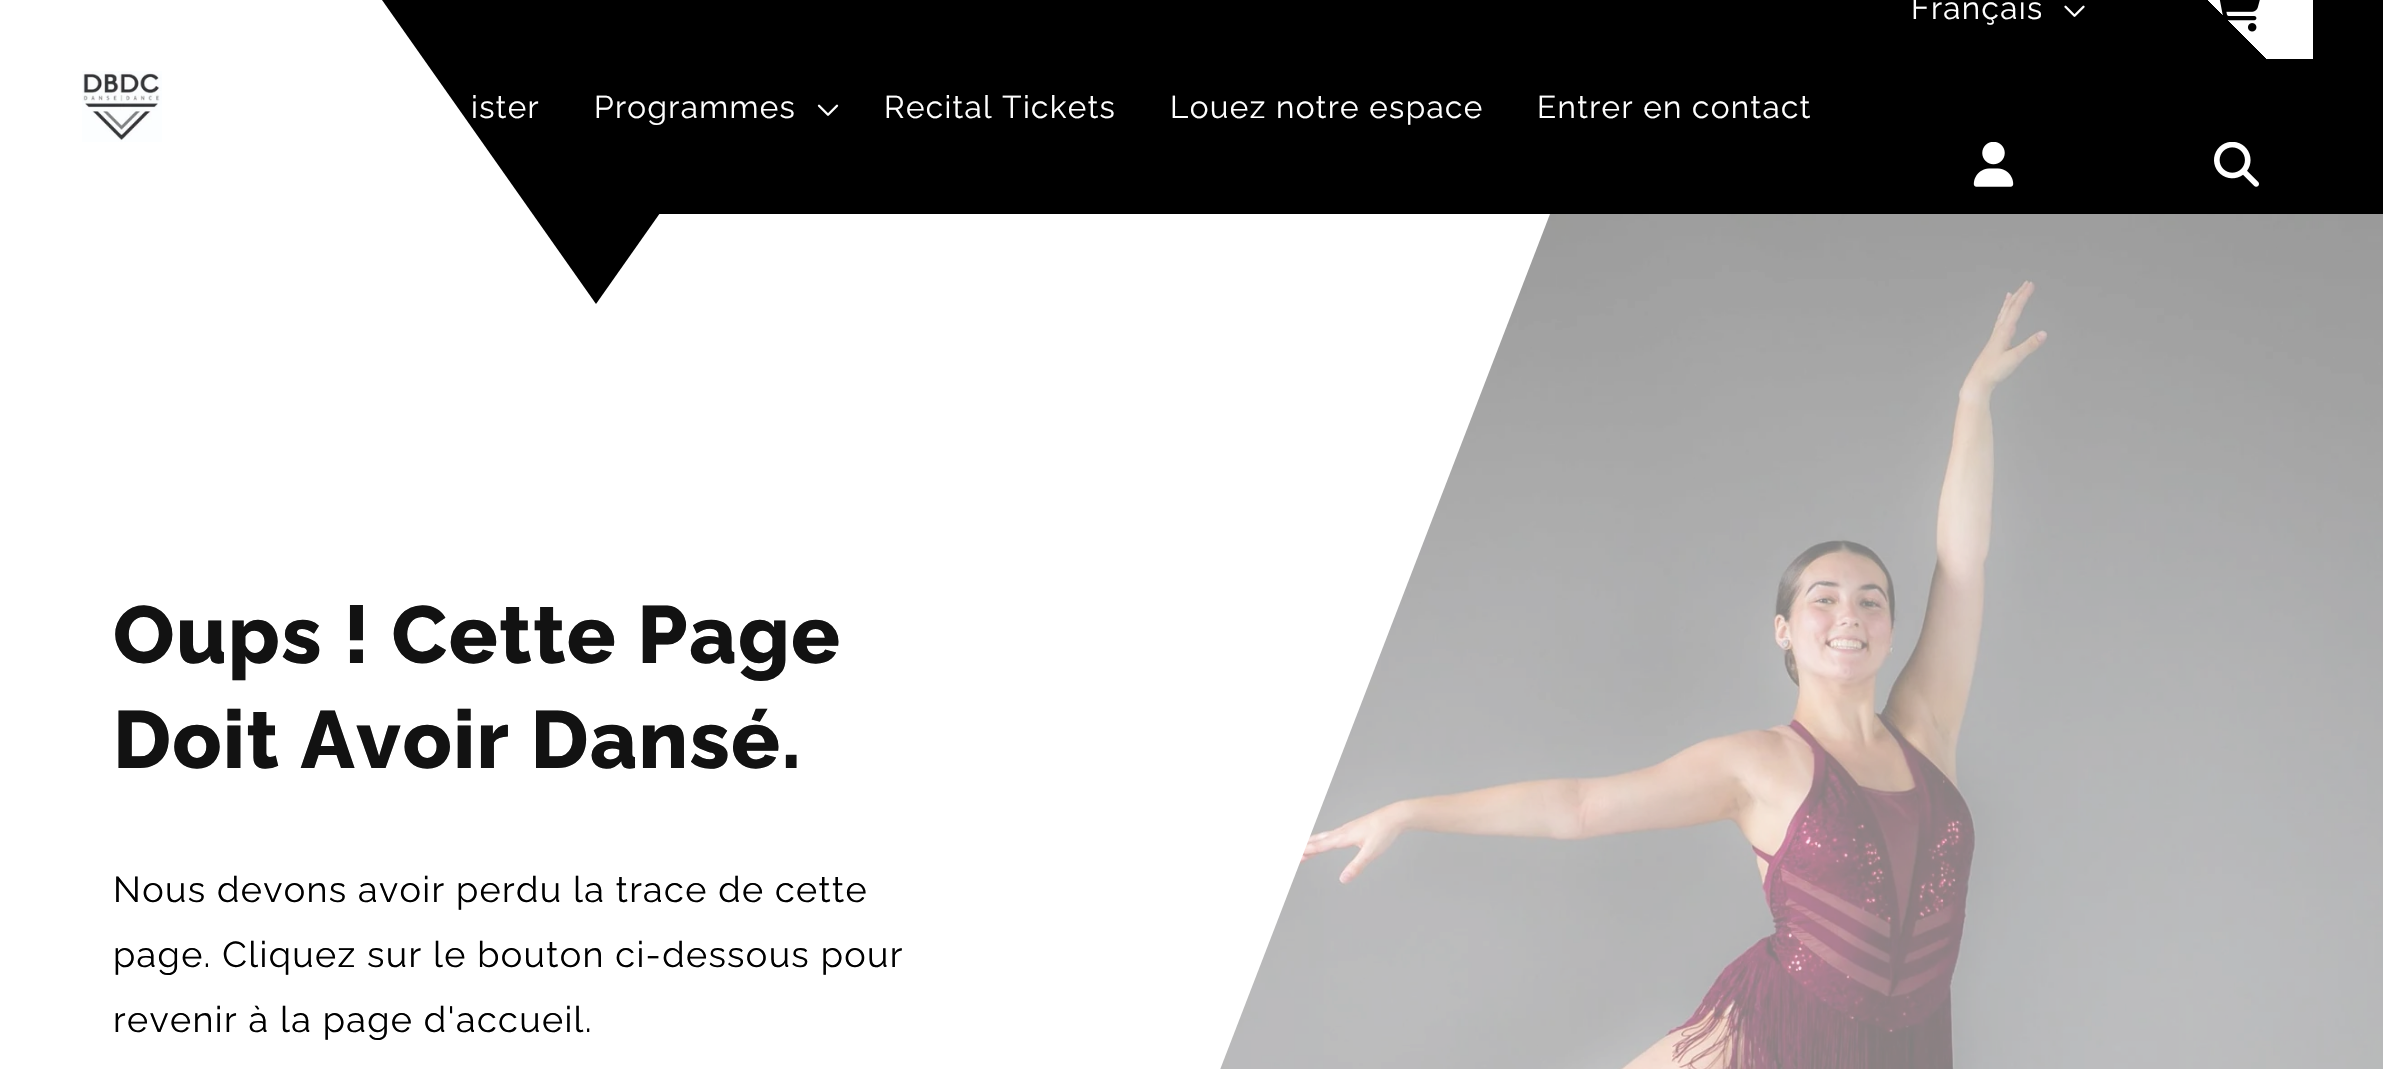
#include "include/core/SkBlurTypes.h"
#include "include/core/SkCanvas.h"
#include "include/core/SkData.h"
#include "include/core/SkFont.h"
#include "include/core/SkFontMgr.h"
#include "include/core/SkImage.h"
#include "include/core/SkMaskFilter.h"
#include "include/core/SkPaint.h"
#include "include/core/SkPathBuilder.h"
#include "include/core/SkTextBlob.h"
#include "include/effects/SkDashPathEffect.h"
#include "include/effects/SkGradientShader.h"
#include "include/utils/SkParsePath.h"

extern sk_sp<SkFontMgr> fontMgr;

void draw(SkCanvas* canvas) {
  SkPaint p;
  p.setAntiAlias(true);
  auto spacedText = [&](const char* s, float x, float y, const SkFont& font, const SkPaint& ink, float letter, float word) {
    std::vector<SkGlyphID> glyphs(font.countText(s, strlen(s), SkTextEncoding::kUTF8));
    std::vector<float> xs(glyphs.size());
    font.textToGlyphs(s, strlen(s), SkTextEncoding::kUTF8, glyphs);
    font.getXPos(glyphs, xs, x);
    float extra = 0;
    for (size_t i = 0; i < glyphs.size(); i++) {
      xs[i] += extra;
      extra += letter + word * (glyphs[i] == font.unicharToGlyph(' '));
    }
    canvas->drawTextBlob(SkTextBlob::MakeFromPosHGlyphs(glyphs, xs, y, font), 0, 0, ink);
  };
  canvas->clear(SK_ColorWHITE);
  p.setColor(SK_ColorBLACK);
  canvas->drawRect(SkRect::MakeLTRB(659, 0, 2383, 214), p);
  canvas->drawPath(SkPathBuilder().moveTo(382, 0).lineTo(810, 0).lineTo(596, 304).close().detach(), p);
  canvas->drawImageRect(SkImages::DeferredFromEncodedData(SkData::MakeFromFileName("images/1.png")), SkRect::MakeLTRB(2064, 5, 2085, 17), SkSamplingOptions());
  {
    const SkColor colors[] = {SK_ColorBLACK, SK_ColorWHITE};
    const float stops[] = {0.42f, 0.42f};
    const SkPoint ends[] = {{2174, 72}, {2300, -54}};
    p.setShader(SkGradientShader::MakeLinear(ends, colors, stops, 2, SkTileMode::kClamp));
    p.setAlpha(255);
  }
  canvas->drawRect(SkRect::MakeLTRB(2208, 0, 2313, 59), p);
  canvas->drawImageRect(SkImages::DeferredFromEncodedData(SkData::MakeFromFileName("images/2.png")), SkRect::MakeLTRB(2219, 0, 2260, 32), SkSamplingOptions());
  canvas->drawImageRect(SkImages::DeferredFromEncodedData(SkData::MakeFromFileName("images/3.png")), SkRect::MakeLTRB(1973, 142, 2014, 187), SkSamplingOptions());
  canvas->drawImageRect(SkImages::DeferredFromEncodedData(SkData::MakeFromFileName("images/4.png")), SkRect::MakeLTRB(2214, 142, 2259, 187), SkSamplingOptions());
  canvas->drawImageRect(SkImages::DeferredFromEncodedData(SkData::MakeFromFileName("images/5.png")), SkRect::MakeLTRB(82, 71, 162, 142), SkSamplingOptions());
  canvas->drawImageRect(SkImages::DeferredFromEncodedData(SkData::MakeFromFileName("images/6.png")), SkRect::MakeLTRB(817, 104, 839, 116), SkSamplingOptions());
  canvas->drawImageRect(SkImages::DeferredFromEncodedData(SkData::MakeFromFileName("images/7.png")), SkRect::MakeLTRB(1220, 214, 2383, 1069), SkSamplingOptions());
  p.setShader(nullptr);
  p.setColor(SK_ColorWHITE);
  canvas->drawPath(SkPathBuilder().moveTo(1073, 214).lineTo(1550, 214).lineTo(1073, 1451).close().detach(), p);
  SkFont font1(fontMgr->matchFamilyStyle("Raleway", SkFontStyle::Normal()), 31.5f);
  font1.setSubpixel(true);
  spacedText("Français", 1911, 19, font1, p, 1.35f, 0);
  spacedText("ister", 471, 118, font1, p, 1.35f, 0);
  spacedText("Programmes", 594, 118, font1, p, 1.35f, 0);
  spacedText("Recital Tickets", 884, 118, font1, p, 1.35f, 0);
  spacedText("Louez notre espace", 1170, 118, font1, p, 1.35f, 0);
  spacedText("Entrer en contact", 1537, 118, font1, p, 1.35f, 0);
  SkFont font2(fontMgr->matchFamilyStyle("Raleway", SkFontStyle(800, SkFontStyle::kNormal_Width, SkFontStyle::kUpright_Slant)), 81);
  font2.setSubpixel(true);
  p.setColor(SkColorSetRGB(18, 18, 18));
  spacedText("Oups ! Cette Page", 113, 663, font2, p, 1.35f, 0);
  spacedText("Doit Avoir Dansé.", 113, 768, font2, p, 1.35f, 0);
  SkFont font3(fontMgr->matchFamilyStyle("Raleway", SkFontStyle::Normal()), 36);
  font3.setSubpixel(true);
  p.setColor(SK_ColorBLACK);
  spacedText("Nous devons avoir perdu la trace de cette", 113, 902, font3, p, 1.35f, 0);
  spacedText("page. Cliquez sur le bouton ci-dessous pour", 113, 967, font3, p, 1.35f, 0);
  spacedText("revenir à la page d'accueil.", 113, 1032, font3, p, 1.35f, 0);
}
